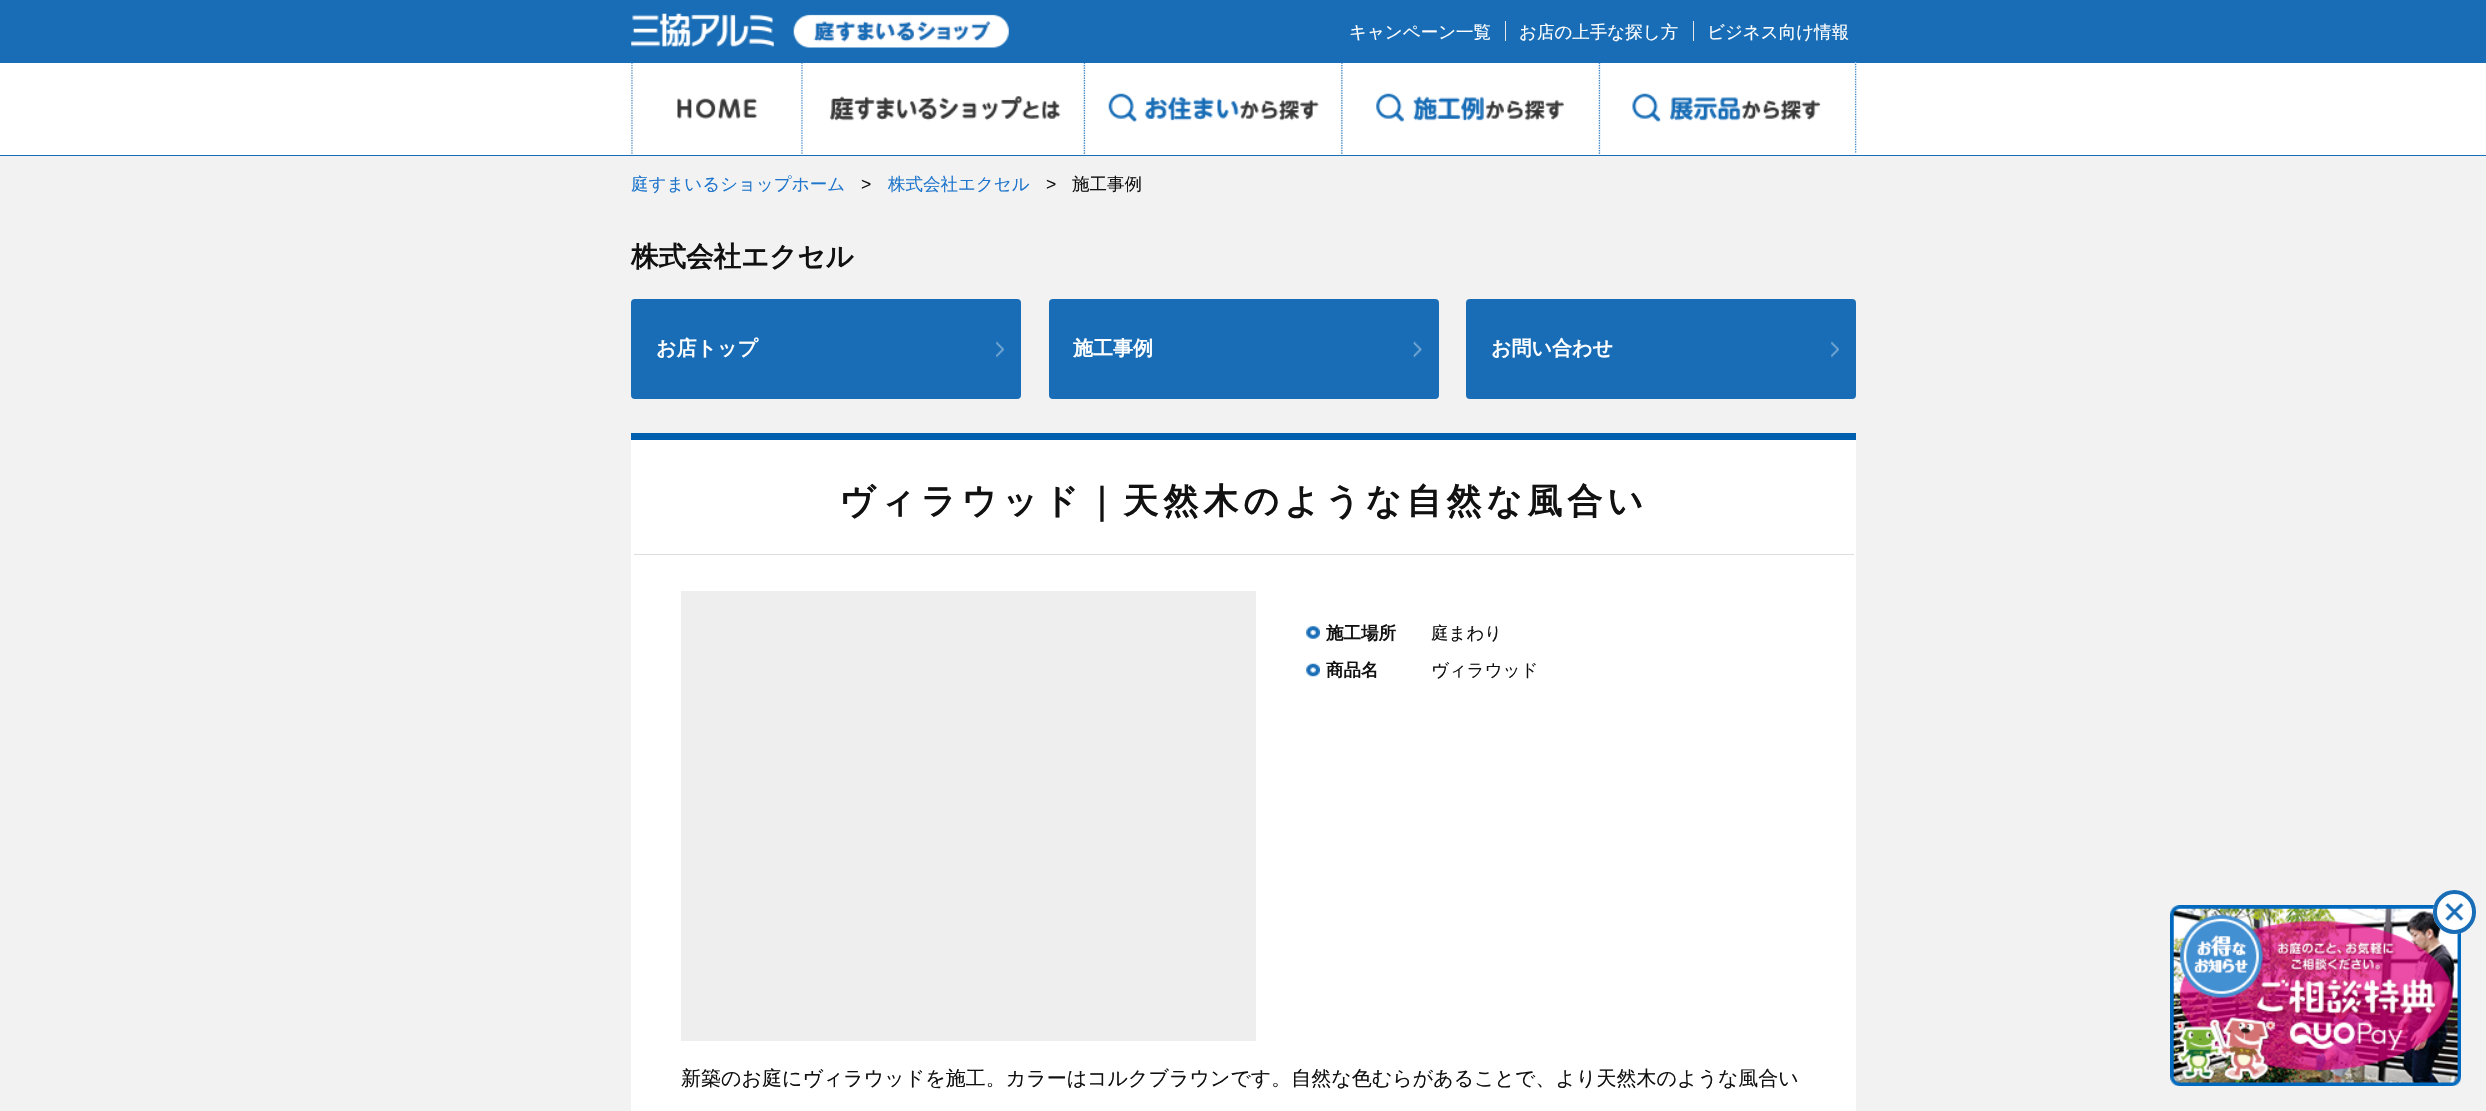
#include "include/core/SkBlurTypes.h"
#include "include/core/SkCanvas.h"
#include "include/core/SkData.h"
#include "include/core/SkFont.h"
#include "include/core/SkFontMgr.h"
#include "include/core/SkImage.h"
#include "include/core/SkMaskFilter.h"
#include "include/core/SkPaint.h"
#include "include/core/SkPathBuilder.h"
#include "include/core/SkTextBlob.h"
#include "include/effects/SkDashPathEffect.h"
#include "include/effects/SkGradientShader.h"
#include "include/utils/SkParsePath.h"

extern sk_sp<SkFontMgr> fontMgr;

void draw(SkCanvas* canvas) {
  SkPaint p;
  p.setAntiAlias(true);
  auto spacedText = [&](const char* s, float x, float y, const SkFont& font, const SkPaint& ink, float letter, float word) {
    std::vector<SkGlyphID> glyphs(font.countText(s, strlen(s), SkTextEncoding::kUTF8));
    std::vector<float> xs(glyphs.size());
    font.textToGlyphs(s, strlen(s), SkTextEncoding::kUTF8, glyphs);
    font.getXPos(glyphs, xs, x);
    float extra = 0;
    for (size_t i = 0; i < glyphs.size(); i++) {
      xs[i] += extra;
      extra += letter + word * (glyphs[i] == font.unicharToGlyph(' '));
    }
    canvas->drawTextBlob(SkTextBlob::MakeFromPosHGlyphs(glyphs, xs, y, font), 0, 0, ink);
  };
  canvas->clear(SK_ColorWHITE);
  p.setColor(SkColorSetRGB(24, 109, 182));
  canvas->drawRect(SkRect::MakeLTRB(0, 0, 2486, 63), p);
  canvas->drawImageRect(SkImages::DeferredFromEncodedData(SkData::MakeFromFileName("images/1.png")), SkRect::MakeLTRB(631, 13, 1009, 48), SkSamplingOptions());
  p.setColor(SkColorSetRGB(230, 230, 230));
  canvas->drawRect(SkRect::MakeLTRB(1505, 21, 1506, 41), p);
  canvas->drawRect(SkRect::MakeLTRB(1693, 21, 1694, 41), p);
  p.setColor(SkColorSetRGB(24, 109, 182));
  canvas->drawRect(SkRect::MakeLTRB(0, 155, 2486, 156), p);
  canvas->drawImageRect(SkImages::DeferredFromEncodedData(SkData::MakeFromFileName("images/2.png")), SkRect::MakeLTRB(631, 63, 758, 154), SkSamplingOptions());
  canvas->drawImageRect(SkImages::DeferredFromEncodedData(SkData::MakeFromFileName("images/3.png")), SkRect::MakeLTRB(801, 63, 1061, 154), SkSamplingOptions());
  canvas->drawImageRect(SkImages::DeferredFromEncodedData(SkData::MakeFromFileName("images/4.png")), SkRect::MakeLTRB(1083, 63, 1319, 154), SkSamplingOptions());
  canvas->drawImageRect(SkImages::DeferredFromEncodedData(SkData::MakeFromFileName("images/5.png")), SkRect::MakeLTRB(1341, 63, 1564, 154), SkSamplingOptions());
  canvas->drawImageRect(SkImages::DeferredFromEncodedData(SkData::MakeFromFileName("images/6.png")), SkRect::MakeLTRB(1598, 62, 1857, 154), SkSamplingOptions());
  p.setColor(SkColorSetRGB(242, 242, 242));
  canvas->drawRect(SkRect::MakeLTRB(0, 156, 2486, 1111), p);
  p.setColor(SkColorSetRGB(24, 109, 182));
  canvas->drawRoundRect(SkRect::MakeLTRB(631, 299, 1021, 399), 4, 4, p);
  canvas->drawImageRect(SkImages::DeferredFromEncodedData(SkData::MakeFromFileName("images/7.png")), SkRect::MakeLTRB(996, 341, 1004, 358), SkSamplingOptions());
  canvas->drawRoundRect(SkRect::MakeLTRB(1049, 299, 1439, 399), 4, 4, p);
  canvas->drawImageRect(SkImages::DeferredFromEncodedData(SkData::MakeFromFileName("images/8.png")), SkRect::MakeLTRB(1413, 341, 1422, 358), SkSamplingOptions());
  canvas->drawRoundRect(SkRect::MakeLTRB(1466, 299, 1856, 399), 4, 4, p);
  canvas->drawImageRect(SkImages::DeferredFromEncodedData(SkData::MakeFromFileName("images/7.png")), SkRect::MakeLTRB(1831, 341, 1839, 358), SkSamplingOptions());
  p.setColor(SkColorSetRGB(0, 95, 175));
  canvas->drawRect(SkRect::MakeLTRB(631, 433, 1856, 440), p);
  p.setColor(SK_ColorWHITE);
  canvas->drawRect(SkRect::MakeLTRB(631, 440, 1856, 1111), p);
  p.setColor(SkColorSetRGB(221, 221, 221));
  canvas->drawRect(SkRect::MakeLTRB(634, 554, 1854, 555), p);
  p.setColor(SkColorSetRGB(238, 238, 238));
  canvas->drawRect(SkRect::MakeLTRB(681, 591, 1256, 1041), p);
  canvas->drawImageRect(SkImages::DeferredFromEncodedData(SkData::MakeFromFileName("images/9.png")), SkRect::MakeLTRB(1306, 626, 1320, 639), SkSamplingOptions());
  canvas->drawImageRect(SkImages::DeferredFromEncodedData(SkData::MakeFromFileName("images/10.png")), SkRect::MakeLTRB(1306, 663, 1320, 677), SkSamplingOptions());
  canvas->drawImageRect(SkImages::DeferredFromEncodedData(SkData::MakeFromFileName("images/12.png")), SkRect::MakeLTRB(2170, 905, 2461, 1086), SkSamplingOptions());
  p.setColor(SK_ColorWHITE);
  canvas->drawRoundRect(SkRect::MakeLTRB(2433, 890, 2476, 934), 21.5f, 21.5f, p);
  canvas->drawImageRect(SkImages::DeferredFromEncodedData(SkData::MakeFromFileName("images/11.png")), SkRect::MakeLTRB(2445, 903, 2464, 921), SkSamplingOptions());
  p.setStyle(SkPaint::kStroke_Style);
  p.setStrokeWidth(4);
  p.setColor(SkColorSetRGB(24, 109, 182));
  canvas->drawRoundRect(SkRect::MakeLTRB(2435, 892, 2474, 932), 19.5f, 19.5f, p);
  SkFont font1(fontMgr->matchFamilyStyle("WenQuanYi Zen Hei", SkFontStyle(500, SkFontStyle::kNormal_Width, SkFontStyle::kUpright_Slant)), 17.5f);
  font1.setSubpixel(true);
  p.setStyle(SkPaint::kFill_Style);
  p.setColor(SK_ColorWHITE);
  canvas->drawString("キャンペーン一覧", 1349, 38, font1, p);
  canvas->drawString("お店の上手な探し方", 1519, 38, font1, p);
  canvas->drawString("ビジネス向け情報", 1707, 38, font1, p);
  p.setColor(SkColorSetRGB(32, 118, 204));
  canvas->drawString("庭すまいるショップホーム", 631, 190, font1, p);
  SkFont font2(fontMgr->matchFamilyStyle("Liberation Sans", SkFontStyle::Normal()), 17.5f);
  font2.setSubpixel(true);
  p.setColor(SkColorSetRGB(17, 17, 17));
  canvas->drawString(">", 861, 190, font2, p);
  p.setColor(SkColorSetRGB(32, 118, 204));
  canvas->drawString("株式会社エクセル", 888, 190, font1, p);
  p.setColor(SkColorSetRGB(17, 17, 17));
  canvas->drawString(">", 1046, 190, font2, p);
  canvas->drawString("施工事例", 1072, 190, font1, p);
  SkFont font3(fontMgr->matchFamilyStyle("WenQuanYi Zen Hei", SkFontStyle::Bold()), 27.5f);
  font3.setSubpixel(true);
  canvas->drawString("株式会社エクセル", 631, 266, font3, p);
  SkFont font4(fontMgr->matchFamilyStyle("WenQuanYi Zen Hei", SkFontStyle::Bold()), 20);
  font4.setSubpixel(true);
  p.setColor(SK_ColorWHITE);
  canvas->drawString("お店トップ", 656, 355, font4, p);
  canvas->drawString("施工事例", 1073, 355, font4, p);
  canvas->drawString("お問い合わせ", 1491, 355, font4, p);
  SkFont font5(fontMgr->matchFamilyStyle("WenQuanYi Zen Hei", SkFontStyle::Bold()), 35);
  font5.setSubpixel(true);
  p.setColor(SkColorSetRGB(17, 17, 17));
  spacedText("ヴィラウッド｜天然木のような自然な風合い", 839, 513, font5, p, 5, 0);
  SkFont font6(fontMgr->matchFamilyStyle("WenQuanYi Zen Hei", SkFontStyle::Bold()), 17.5f);
  font6.setSubpixel(true);
  canvas->drawString("施工場所", 1326, 639, font6, p);
  canvas->drawString("庭まわり", 1431, 639, font1, p);
  canvas->drawString("商品名", 1326, 676, font6, p);
  canvas->drawString("ヴィラウッド", 1431, 676, font1, p);
  SkFont font7(fontMgr->matchFamilyStyle("WenQuanYi Zen Hei", SkFontStyle(500, SkFontStyle::kNormal_Width, SkFontStyle::kUpright_Slant)), 20);
  font7.setSubpixel(true);
  canvas->drawString("新築のお庭にヴィラウッドを施工。カラーはコルクブラウンです。自然な色むらがあることで、より天然木のような風合い", 681, 1085, font7, p);
}
